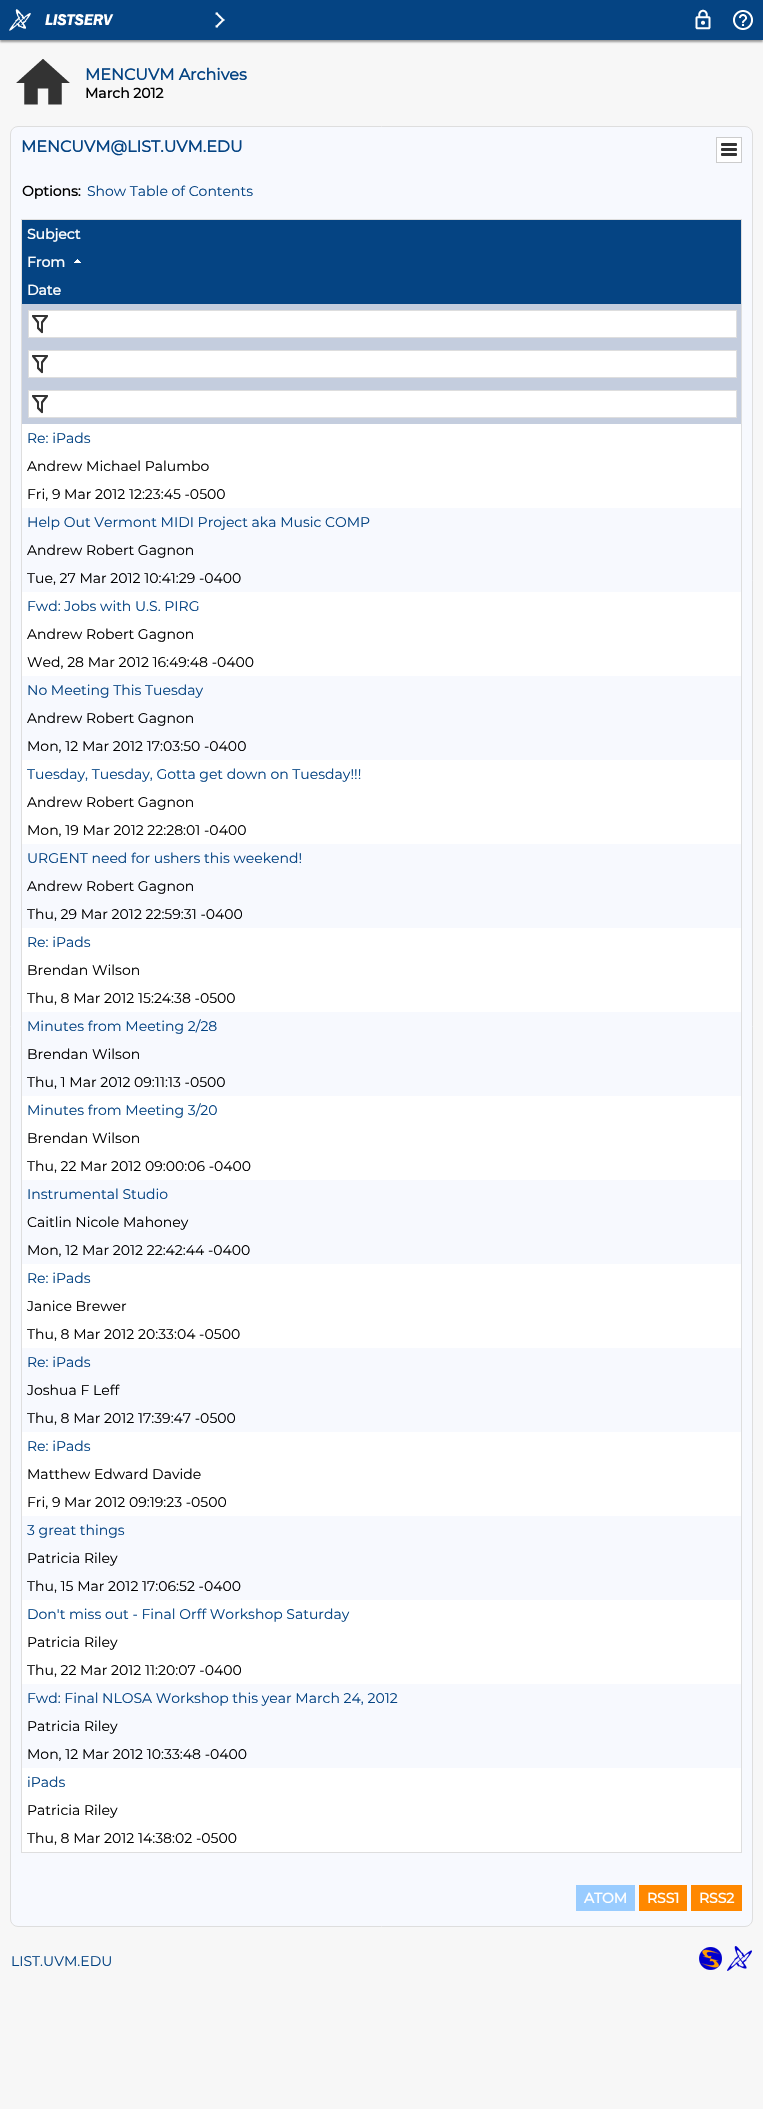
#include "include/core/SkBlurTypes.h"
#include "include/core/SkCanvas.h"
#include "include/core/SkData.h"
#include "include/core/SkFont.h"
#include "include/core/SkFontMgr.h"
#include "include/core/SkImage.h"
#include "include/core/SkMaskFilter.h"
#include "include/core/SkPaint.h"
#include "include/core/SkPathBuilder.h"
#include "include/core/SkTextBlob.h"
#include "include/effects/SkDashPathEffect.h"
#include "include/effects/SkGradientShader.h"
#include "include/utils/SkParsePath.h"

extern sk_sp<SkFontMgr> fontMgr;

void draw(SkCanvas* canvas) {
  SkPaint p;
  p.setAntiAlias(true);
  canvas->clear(SkColorSetRGB(247, 247, 247));
  p.setColor(SkColorSetRGB(153, 153, 153));
  p.setMaskFilter(SkMaskFilter::MakeBlur(kNormal_SkBlurStyle, 1));
  canvas->drawRect(SkRect::MakeLTRB(0, 2, 763, 42), p);
  p.setMaskFilter(nullptr);
  p.setColor(SkColorSetRGB(5, 68, 131));
  canvas->drawRect(SkRect::MakeLTRB(0, 0, 763, 40), p);
  canvas->drawImageRect(SkImages::DeferredFromEncodedData(SkData::MakeFromFileName("images/1.png")), SkRect::MakeLTRB(9, 9, 31, 31), SkSamplingOptions());
  canvas->drawImageRect(SkImages::DeferredFromEncodedData(SkData::MakeFromFileName("images/2.png")), SkRect::MakeLTRB(45, 14, 114, 26), SkSamplingOptions());
  canvas->drawImageRect(SkImages::DeferredFromEncodedData(SkData::MakeFromFileName("images/3.png")), SkRect::MakeLTRB(215, 12, 225, 28), SkSamplingOptions());
  canvas->drawImageRect(SkImages::DeferredFromEncodedData(SkData::MakeFromFileName("images/4.png")), SkRect::MakeLTRB(695, 9, 711, 30), SkSamplingOptions());
  canvas->drawImageRect(SkImages::DeferredFromEncodedData(SkData::MakeFromFileName("images/5.png")), SkRect::MakeLTRB(733, 10, 753, 30), SkSamplingOptions());
  canvas->drawImageRect(SkImages::DeferredFromEncodedData(SkData::MakeFromFileName("images/6.png")), SkRect::MakeLTRB(16, 59, 70, 105), SkSamplingOptions());
  p.setColor(SkColorSetRGB(247, 249, 254));
  canvas->drawRoundRect(SkRect::MakeLTRB(10.5f, 126.5f, 752.5f, 1926.5f), 7.5f, 7.5f, p);
  p.setStyle(SkPaint::kStroke_Style);
  p.setStrokeWidth(1);
  p.setColor(SkColorSetRGB(222, 222, 222));
  canvas->drawRoundRect(SkRect::MakeLTRB(10.5f, 126.5f, 752.5f, 1926.5f), 7.5f, 7.5f, p);
  p.setStyle(SkPaint::kFill_Style);
  p.setColor(SK_ColorWHITE);
  canvas->drawRect(SkRect::MakeLTRB(716.5f, 137.5f, 741.5f, 162.5f), p);
  p.setStyle(SkPaint::kStroke_Style);
  p.setColor(SkColorSetRGB(204, 204, 204));
  canvas->drawRect(SkRect::MakeLTRB(716.5f, 137.5f, 741.5f, 162.5f), p);
  canvas->drawImageRect(SkImages::DeferredFromEncodedData(SkData::MakeFromFileName("images/7.png")), SkRect::MakeLTRB(721, 143, 737, 156), SkSamplingOptions());
  p.setColor(SkColorSetRGB(222, 222, 222));
  canvas->drawRect(SkRect::MakeLTRB(21.5f, 219.5f, 741.5f, 1852.5f), p);
  p.setStyle(SkPaint::kFill_Style);
  p.setColor(SkColorSetRGB(5, 68, 131));
  canvas->drawRect(SkRect::MakeLTRB(22, 220, 741, 304), p);
  canvas->drawImageRect(SkImages::DeferredFromEncodedData(SkData::MakeFromFileName("images/8.png")), SkRect::MakeLTRB(74, 259, 81, 263), SkSamplingOptions());
  p.setColor(SkColorSetRGB(196, 205, 222));
  canvas->drawRect(SkRect::MakeLTRB(22, 304, 741, 424), p);
  p.setColor(SK_ColorWHITE);
  canvas->drawRect(SkRect::MakeLTRB(29, 311, 736, 337), p);
  canvas->drawImageRect(SkImages::DeferredFromEncodedData(SkData::MakeFromFileName("images/9.png")), SkRect::MakeLTRB(32, 315, 48, 334), SkSamplingOptions());
  p.setStyle(SkPaint::kStroke_Style);
  p.setColor(SkColorSetRGB(222, 222, 222));
  canvas->drawRect(SkRect::MakeLTRB(28.5f, 310.5f, 736.5f, 337.5f), p);
  p.setStyle(SkPaint::kFill_Style);
  p.setColor(SK_ColorWHITE);
  canvas->drawRect(SkRect::MakeLTRB(29, 351, 736, 377), p);
  canvas->drawImageRect(SkImages::DeferredFromEncodedData(SkData::MakeFromFileName("images/9.png")), SkRect::MakeLTRB(32, 355, 48, 374), SkSamplingOptions());
  p.setStyle(SkPaint::kStroke_Style);
  p.setColor(SkColorSetRGB(222, 222, 222));
  canvas->drawRect(SkRect::MakeLTRB(28.5f, 350.5f, 736.5f, 377.5f), p);
  p.setStyle(SkPaint::kFill_Style);
  p.setColor(SK_ColorWHITE);
  canvas->drawRect(SkRect::MakeLTRB(29, 391, 736, 417), p);
  canvas->drawImageRect(SkImages::DeferredFromEncodedData(SkData::MakeFromFileName("images/9.png")), SkRect::MakeLTRB(32, 395, 48, 414), SkSamplingOptions());
  p.setStyle(SkPaint::kStroke_Style);
  p.setColor(SkColorSetRGB(222, 222, 222));
  canvas->drawRect(SkRect::MakeLTRB(28.5f, 390.5f, 736.5f, 417.5f), p);
  p.setStyle(SkPaint::kFill_Style);
  p.setColor(SK_ColorWHITE);
  canvas->drawRect(SkRect::MakeLTRB(22, 424, 741, 508), p);
  canvas->drawRect(SkRect::MakeLTRB(22, 592, 741, 676), p);
  canvas->drawRect(SkRect::MakeLTRB(22, 760, 741, 844), p);
  canvas->drawRect(SkRect::MakeLTRB(22, 928, 741, 1012), p);
  canvas->drawRect(SkRect::MakeLTRB(22, 1096, 741, 1180), p);
  canvas->drawRect(SkRect::MakeLTRB(22, 1264, 741, 1348), p);
  canvas->drawRect(SkRect::MakeLTRB(22, 1432, 741, 1516), p);
  canvas->drawRect(SkRect::MakeLTRB(22, 1600, 741, 1684), p);
  canvas->drawRect(SkRect::MakeLTRB(22, 1768, 741, 1852), p);
  p.setColor(SkColorSetRGB(153, 204, 255));
  canvas->drawRect(SkRect::MakeLTRB(576, 1885, 635, 1911), p);
  p.setColor(SkColorSetRGB(255, 136, 0));
  canvas->drawRect(SkRect::MakeLTRB(639, 1885, 687, 1911), p);
  canvas->drawRect(SkRect::MakeLTRB(691, 1885, 742, 1911), p);
  canvas->drawImageRect(SkImages::DeferredFromEncodedData(SkData::MakeFromFileName("images/10.png")), SkRect::MakeLTRB(699, 1947, 722, 1970), SkSamplingOptions());
  canvas->drawImageRect(SkImages::DeferredFromEncodedData(SkData::MakeFromFileName("images/11.png")), SkRect::MakeLTRB(727, 1946, 752, 1971), SkSamplingOptions());
  SkFont font1(fontMgr->matchFamilyStyle("Montserrat", SkFontStyle::Bold()), 16);
  font1.setSubpixel(true);
  p.setColor(SkColorSetRGB(5, 68, 131));
  canvas->drawString("MENCUVM Archives", 85, 80, font1, p);
  SkFont font2(fontMgr->matchFamilyStyle("Montserrat", SkFontStyle::Bold()), 14);
  font2.setSubpixel(true);
  p.setColor(SK_ColorBLACK);
  canvas->drawString("March 2012", 85, 98, font2, p);
  p.setColor(SkColorSetRGB(5, 68, 131));
  canvas->drawString("MENCUVM@LIST.UVM.EDU", 21, 152, font1, p);
  p.setColor(SK_ColorBLACK);
  canvas->drawString("Options:", 22, 196, font2, p);
  SkFont font3(fontMgr->matchFamilyStyle("Montserrat", SkFontStyle(100, SkFontStyle::kNormal_Width, SkFontStyle::kUpright_Slant)), 14);
  font3.setSubpixel(true);
  p.setColor(SkColorSetRGB(5, 68, 131));
  canvas->drawString("Show Table of Contents", 87, 196, font3, p);
  p.setColor(SK_ColorWHITE);
  canvas->drawString("Subject", 27, 239, font2, p);
  canvas->drawString("From", 27, 267, font2, p);
  canvas->drawString("Date", 27, 295, font2, p);
  p.setColor(SkColorSetRGB(5, 68, 131));
  canvas->drawString("Re: iPads", 27, 443, font3, p);
  p.setColor(SK_ColorBLACK);
  canvas->drawString("Andrew Michael Palumbo", 27, 471, font3, p);
  canvas->drawString("Fri, 9 Mar 2012 12:23:45 -0500", 27, 499, font3, p);
  p.setColor(SkColorSetRGB(5, 68, 131));
  canvas->drawString("Help Out Vermont MIDI Project aka Music COMP", 27, 527, font3, p);
  p.setColor(SK_ColorBLACK);
  canvas->drawString("Andrew Robert Gagnon", 27, 555, font3, p);
  canvas->drawString("Tue, 27 Mar 2012 10:41:29 -0400", 27, 583, font3, p);
  p.setColor(SkColorSetRGB(5, 68, 131));
  canvas->drawString("Fwd: Jobs with U.S. PIRG", 27, 611, font3, p);
  p.setColor(SK_ColorBLACK);
  canvas->drawString("Andrew Robert Gagnon", 27, 639, font3, p);
  canvas->drawString("Wed, 28 Mar 2012 16:49:48 -0400", 27, 667, font3, p);
  p.setColor(SkColorSetRGB(5, 68, 131));
  canvas->drawString("No Meeting This Tuesday", 27, 695, font3, p);
  p.setColor(SK_ColorBLACK);
  canvas->drawString("Andrew Robert Gagnon", 27, 723, font3, p);
  canvas->drawString("Mon, 12 Mar 2012 17:03:50 -0400", 27, 751, font3, p);
  p.setColor(SkColorSetRGB(5, 68, 131));
  canvas->drawString("Tuesday, Tuesday, Gotta get down on Tuesday!!!", 27, 779, font3, p);
  p.setColor(SK_ColorBLACK);
  canvas->drawString("Andrew Robert Gagnon", 27, 807, font3, p);
  canvas->drawString("Mon, 19 Mar 2012 22:28:01 -0400", 27, 835, font3, p);
  p.setColor(SkColorSetRGB(5, 68, 131));
  canvas->drawString("URGENT need for ushers this weekend!", 27, 863, font3, p);
  p.setColor(SK_ColorBLACK);
  canvas->drawString("Andrew Robert Gagnon", 27, 891, font3, p);
  canvas->drawString("Thu, 29 Mar 2012 22:59:31 -0400", 27, 919, font3, p);
  p.setColor(SkColorSetRGB(5, 68, 131));
  canvas->drawString("Re: iPads", 27, 947, font3, p);
  p.setColor(SK_ColorBLACK);
  canvas->drawString("Brendan Wilson", 27, 975, font3, p);
  canvas->drawString("Thu, 8 Mar 2012 15:24:38 -0500", 27, 1003, font3, p);
  p.setColor(SkColorSetRGB(5, 68, 131));
  canvas->drawString("Minutes from Meeting 2/28", 27, 1031, font3, p);
  p.setColor(SK_ColorBLACK);
  canvas->drawString("Brendan Wilson", 27, 1059, font3, p);
  canvas->drawString("Thu, 1 Mar 2012 09:11:13 -0500", 27, 1087, font3, p);
  p.setColor(SkColorSetRGB(5, 68, 131));
  canvas->drawString("Minutes from Meeting 3/20", 27, 1115, font3, p);
  p.setColor(SK_ColorBLACK);
  canvas->drawString("Brendan Wilson", 27, 1143, font3, p);
  canvas->drawString("Thu, 22 Mar 2012 09:00:06 -0400", 27, 1171, font3, p);
  p.setColor(SkColorSetRGB(5, 68, 131));
  canvas->drawString("Instrumental Studio", 27, 1199, font3, p);
  p.setColor(SK_ColorBLACK);
  canvas->drawString("Caitlin Nicole Mahoney", 27, 1227, font3, p);
  canvas->drawString("Mon, 12 Mar 2012 22:42:44 -0400", 27, 1255, font3, p);
  p.setColor(SkColorSetRGB(5, 68, 131));
  canvas->drawString("Re: iPads", 27, 1283, font3, p);
  p.setColor(SK_ColorBLACK);
  canvas->drawString("Janice Brewer", 27, 1311, font3, p);
  canvas->drawString("Thu, 8 Mar 2012 20:33:04 -0500", 27, 1339, font3, p);
  p.setColor(SkColorSetRGB(5, 68, 131));
  canvas->drawString("Re: iPads", 27, 1367, font3, p);
  p.setColor(SK_ColorBLACK);
  canvas->drawString("Joshua F Leff", 27, 1395, font3, p);
  canvas->drawString("Thu, 8 Mar 2012 17:39:47 -0500", 27, 1423, font3, p);
  p.setColor(SkColorSetRGB(5, 68, 131));
  canvas->drawString("Re: iPads", 27, 1451, font3, p);
  p.setColor(SK_ColorBLACK);
  canvas->drawString("Matthew Edward Davide", 27, 1479, font3, p);
  canvas->drawString("Fri, 9 Mar 2012 09:19:23 -0500", 27, 1507, font3, p);
  p.setColor(SkColorSetRGB(5, 68, 131));
  canvas->drawString("3 great things", 27, 1535, font3, p);
  p.setColor(SK_ColorBLACK);
  canvas->drawString("Patricia Riley", 27, 1563, font3, p);
  canvas->drawString("Thu, 15 Mar 2012 17:06:52 -0400", 27, 1591, font3, p);
  p.setColor(SkColorSetRGB(5, 68, 131));
  canvas->drawString("Don't miss out - Final Orff Workshop Saturday", 27, 1619, font3, p);
  p.setColor(SK_ColorBLACK);
  canvas->drawString("Patricia Riley", 27, 1647, font3, p);
  canvas->drawString("Thu, 22 Mar 2012 11:20:07 -0400", 27, 1675, font3, p);
  p.setColor(SkColorSetRGB(5, 68, 131));
  canvas->drawString("Fwd: Final NLOSA Workshop this year March 24, 2012", 27, 1703, font3, p);
  p.setColor(SK_ColorBLACK);
  canvas->drawString("Patricia Riley", 27, 1731, font3, p);
  canvas->drawString("Mon, 12 Mar 2012 10:33:48 -0400", 27, 1759, font3, p);
  p.setColor(SkColorSetRGB(5, 68, 131));
  canvas->drawString("iPads", 27, 1787, font3, p);
  p.setColor(SK_ColorBLACK);
  canvas->drawString("Patricia Riley", 27, 1815, font3, p);
  canvas->drawString("Thu, 8 Mar 2012 14:38:02 -0500", 27, 1843, font3, p);
  p.setColor(SK_ColorWHITE);
  canvas->drawString("ATOM", 584, 1903, font2, p);
  canvas->drawString("RSS1", 647, 1903, font2, p);
  canvas->drawString("RSS2", 699, 1903, font2, p);
  p.setColor(SkColorSetRGB(5, 68, 131));
  canvas->drawString("LIST.UVM.EDU", 11, 1966, font3, p);
}
